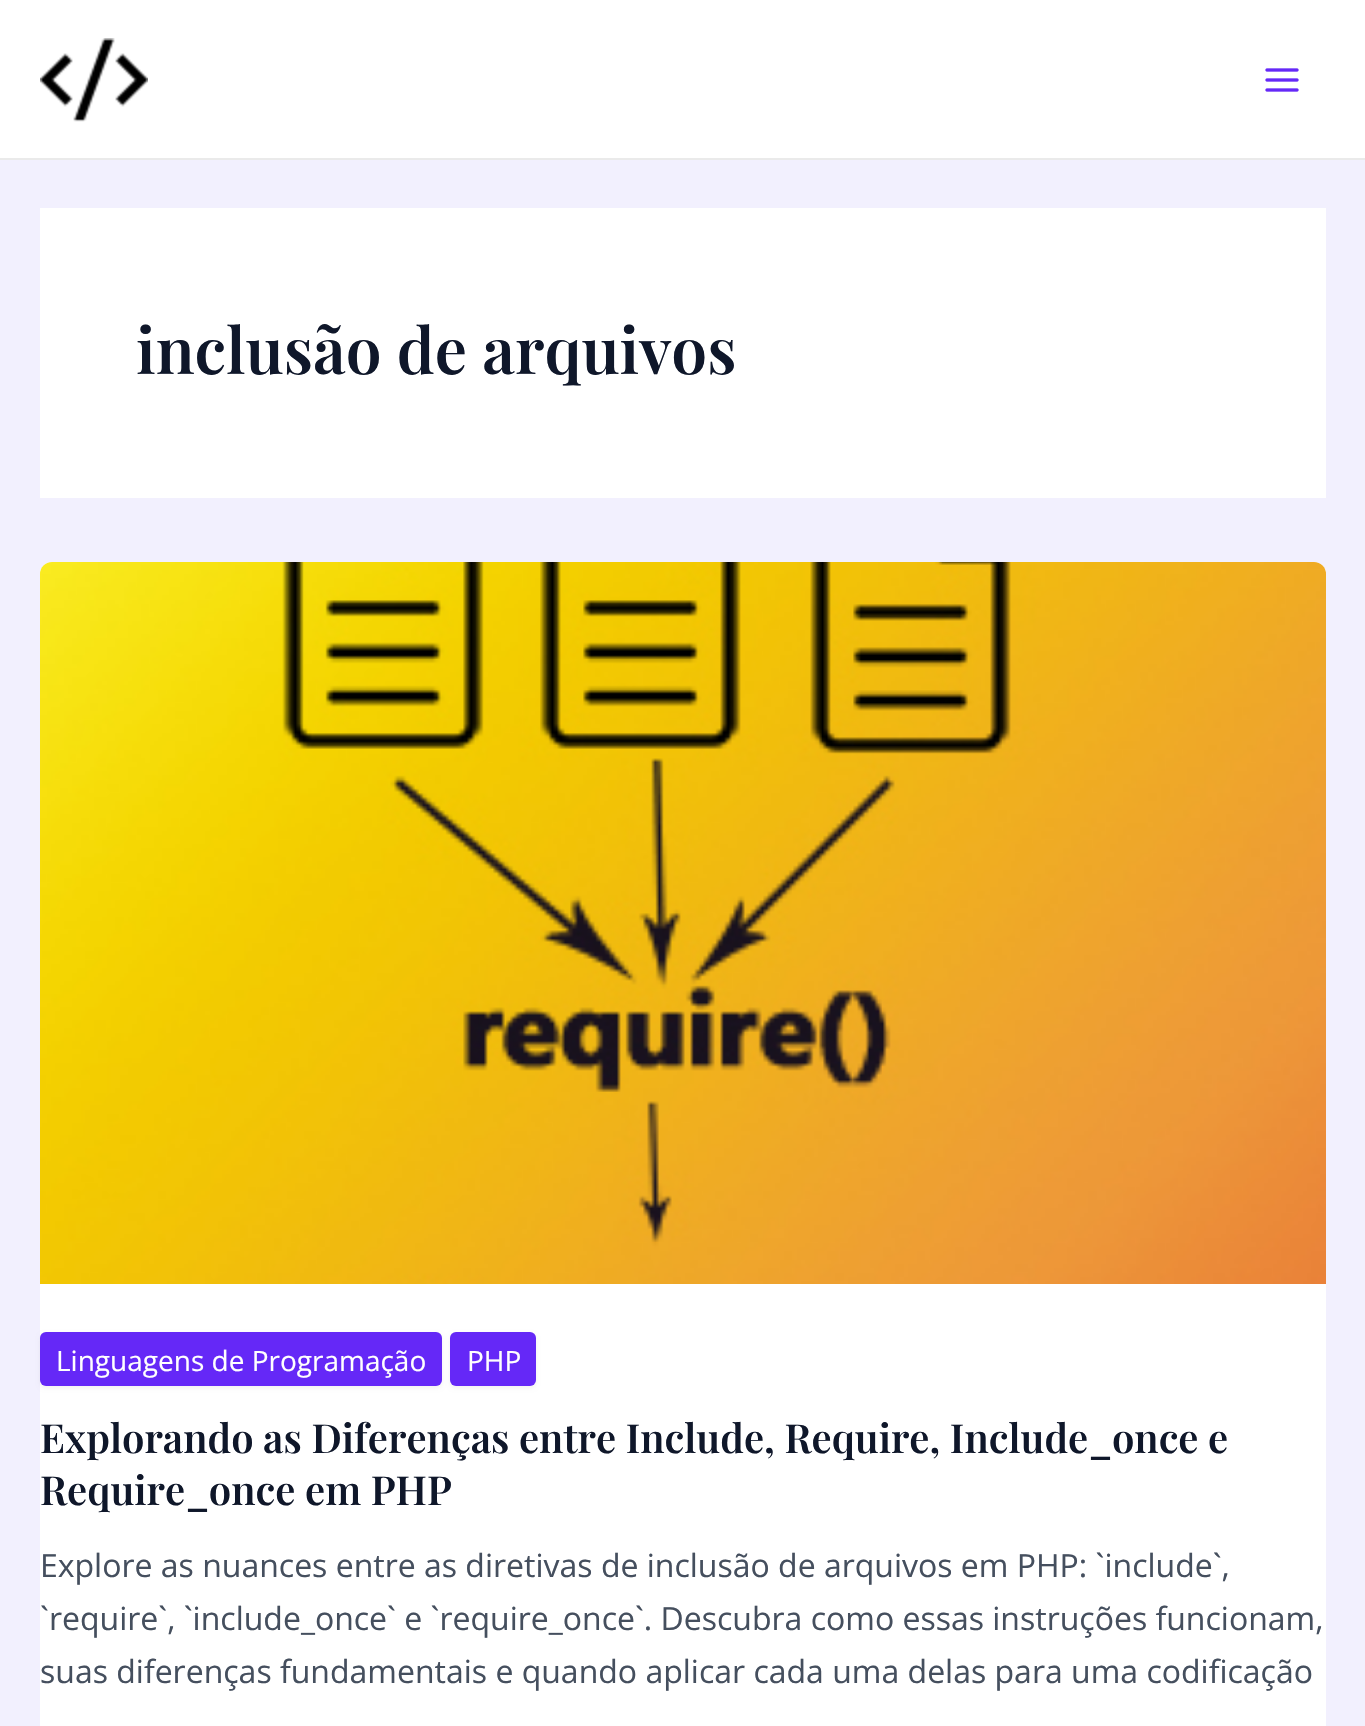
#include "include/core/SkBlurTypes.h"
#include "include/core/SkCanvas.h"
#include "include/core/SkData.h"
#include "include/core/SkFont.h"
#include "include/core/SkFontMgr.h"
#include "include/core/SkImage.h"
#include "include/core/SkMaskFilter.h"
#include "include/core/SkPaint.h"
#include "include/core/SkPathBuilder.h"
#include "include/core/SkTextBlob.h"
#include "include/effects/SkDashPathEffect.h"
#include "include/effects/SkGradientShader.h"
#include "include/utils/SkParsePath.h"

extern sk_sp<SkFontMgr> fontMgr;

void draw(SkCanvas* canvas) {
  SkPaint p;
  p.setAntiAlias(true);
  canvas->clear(SkColorSetRGB(242, 240, 254));
  p.setColor(SK_ColorWHITE);
  canvas->drawRect(SkRect::MakeLTRB(0, 0, 1365, 158), p);
  p.setColor(SkColorSetRGB(234, 234, 234));
  canvas->drawRect(SkRect::MakeLTRB(0, 158, 1365, 160), p);
  canvas->drawImageRect(SkImages::DeferredFromEncodedData(SkData::MakeFromFileName("images/1.png")), SkRect::MakeLTRB(40, 38, 148, 122), SkSamplingOptions());
  canvas->drawImageRect(SkImages::DeferredFromEncodedData(SkData::MakeFromFileName("images/2.png")), SkRect::MakeLTRB(1265, 68, 1299, 92), SkSamplingOptions());
  p.setColor(SK_ColorWHITE);
  canvas->drawRect(SkRect::MakeLTRB(40, 208, 1326, 498), p);
  canvas->drawRoundRect(SkRect::MakeLTRB(40, 562, 1326, 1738), 12, 12, p);
  canvas->drawImageRect(SkImages::DeferredFromEncodedData(SkData::MakeFromFileName("images/3.png")), SkRect::MakeLTRB(40, 562, 1326, 1284), SkSamplingOptions());
  p.setColor(SkColorSetARGB(13, 0, 0, 0));
  p.setMaskFilter(SkMaskFilter::MakeBlur(kNormal_SkBlurStyle, 2));
  canvas->drawRoundRect(SkRect::MakeLTRB(40, 1334, 442, 1388), 6, 6, p);
  p.setMaskFilter(nullptr);
  p.setColor(SkColorSetRGB(101, 40, 247));
  canvas->drawRoundRect(SkRect::MakeLTRB(40, 1332, 442, 1386), 6, 6, p);
  p.setColor(SkColorSetARGB(13, 0, 0, 0));
  p.setMaskFilter(SkMaskFilter::MakeBlur(kNormal_SkBlurStyle, 2));
  canvas->drawRoundRect(SkRect::MakeLTRB(450, 1334, 536, 1388), 6, 6, p);
  p.setMaskFilter(nullptr);
  p.setColor(SkColorSetRGB(101, 40, 247));
  canvas->drawRoundRect(SkRect::MakeLTRB(450, 1332, 536, 1386), 6, 6, p);
  SkFont font1(fontMgr->matchFamilyStyle("Playfair Display", SkFontStyle(600, SkFontStyle::kNormal_Width, SkFontStyle::kUpright_Slant)), 64);
  font1.setSubpixel(true);
  p.setColor(SkColorSetRGB(15, 23, 42));
  canvas->drawString("inclusão de arquivos", 136, 374, font1, p);
  SkFont font2(fontMgr->matchFamilyStyle("Open Sans", SkFontStyle::Normal()), 28);
  font2.setSubpixel(true);
  p.setColor(SK_ColorWHITE);
  canvas->drawString("Linguagens de Programação", 56, 1371, font2, p);
  canvas->drawString("PHP", 467, 1371, font2, p);
  SkFont font3(fontMgr->matchFamilyStyle("Playfair Display", SkFontStyle(600, SkFontStyle::kNormal_Width, SkFontStyle::kUpright_Slant)), 40);
  font3.setSubpixel(true);
  p.setColor(SkColorSetRGB(15, 23, 42));
  canvas->drawString("Explorando as Diferenças entre Include, Require, Include_once e", 40, 1453, font3, p);
  canvas->drawString("Require_once em PHP", 40, 1505, font3, p);
  SkFont font4(fontMgr->matchFamilyStyle("Open Sans", SkFontStyle::Normal()), 32);
  font4.setSubpixel(true);
  p.setColor(SkColorSetRGB(69, 79, 94));
  canvas->drawString("Explore as nuances entre as diretivas de inclusão de arquivos em PHP: `include`,", 40, 1577, font4, p);
  canvas->drawString("`require`, `include_once` e `require_once`. Descubra como essas instruções funcionam,", 40, 1630, font4, p);
  canvas->drawString("suas diferenças fundamentais e quando aplicar cada uma delas para uma codificação", 40, 1683, font4, p);
}
